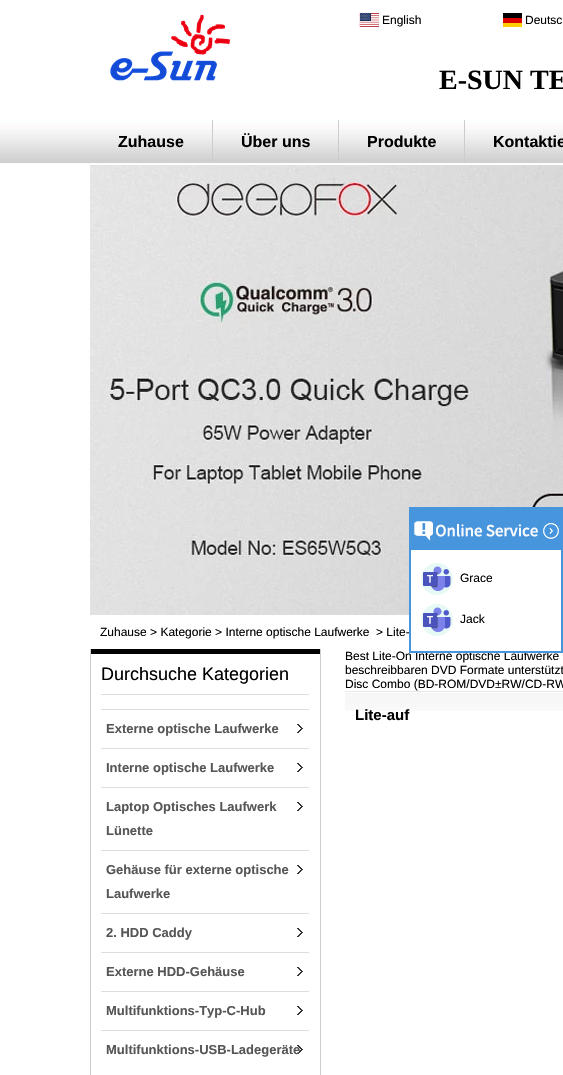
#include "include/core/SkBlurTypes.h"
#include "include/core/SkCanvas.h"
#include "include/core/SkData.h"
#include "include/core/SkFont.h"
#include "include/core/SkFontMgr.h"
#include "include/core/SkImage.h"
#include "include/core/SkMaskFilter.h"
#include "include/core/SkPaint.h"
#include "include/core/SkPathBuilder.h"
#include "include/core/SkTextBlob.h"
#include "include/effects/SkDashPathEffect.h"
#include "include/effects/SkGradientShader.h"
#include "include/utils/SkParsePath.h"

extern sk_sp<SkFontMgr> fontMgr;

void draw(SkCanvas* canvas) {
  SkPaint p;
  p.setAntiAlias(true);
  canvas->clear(SK_ColorWHITE);
  canvas->drawImageRect(SkImages::DeferredFromEncodedData(SkData::MakeFromFileName("images/1.png")), SkRect::MakeLTRB(0, 120, 563, 164), SkSamplingOptions());
  canvas->drawImageRect(SkImages::DeferredFromEncodedData(SkData::MakeFromFileName("images/2.png")), SkRect::MakeLTRB(110, 14, 230, 81), SkSamplingOptions());
  canvas->drawImageRect(SkImages::DeferredFromEncodedData(SkData::MakeFromFileName("images/3.png")), SkRect::MakeLTRB(359, 13, 379, 27), SkSamplingOptions());
  p.setColor(SK_ColorBLACK);
  canvas->drawRect(SkRect::MakeLTRB(503, 13, 522, 18), p);
  p.setColor(SkColorSetRGB(221, 0, 0));
  canvas->drawRect(SkRect::MakeLTRB(503, 18, 522, 23), p);
  p.setColor(SkColorSetRGB(255, 206, 0));
  canvas->drawRect(SkRect::MakeLTRB(503, 23, 522, 27), p);
  p.setColor(SkColorSetRGB(204, 204, 204));
  canvas->drawRect(SkRect::MakeLTRB(212, 120, 213, 163), p);
  canvas->drawRect(SkRect::MakeLTRB(338, 120, 339, 163), p);
  canvas->drawRect(SkRect::MakeLTRB(464, 120, 465, 163), p);
  canvas->drawImageRect(SkImages::DeferredFromEncodedData(SkData::MakeFromFileName("images/4.png")), SkRect::MakeLTRB(90, 165, 563, 615), SkSamplingOptions());
  canvas->drawImageRect(SkImages::DeferredFromEncodedData(SkData::MakeFromFileName("images/5.png")), SkRect::MakeLTRB(409, 507, 563, 553), SkSamplingOptions());
  canvas->drawImageRect(SkImages::DeferredFromEncodedData(SkData::MakeFromFileName("images/6.png")), SkRect::MakeLTRB(543, 523, 559, 539), SkSamplingOptions());
  p.setColor(SkColorSetRGB(205, 205, 205));
  canvas->drawRect(SkRect::MakeLTRB(320, 649, 321, 1075), p);
  canvas->drawRect(SkRect::MakeLTRB(90, 649, 91, 1075), p);
  p.setColor(SK_ColorBLACK);
  canvas->drawRect(SkRect::MakeLTRB(91, 649, 320, 654), p);
  p.setColor(SkColorSetRGB(221, 221, 221));
  canvas->drawRect(SkRect::MakeLTRB(101, 694, 309, 695), p);
  canvas->drawImageRect(SkImages::DeferredFromEncodedData(SkData::MakeFromFileName("images/10.png")), SkRect::MakeLTRB(297, 724, 303, 733), SkSamplingOptions());
  canvas->drawRect(SkRect::MakeLTRB(101, 709, 309, 710), p);
  canvas->drawImageRect(SkImages::DeferredFromEncodedData(SkData::MakeFromFileName("images/10.png")), SkRect::MakeLTRB(297, 763, 303, 772), SkSamplingOptions());
  canvas->drawRect(SkRect::MakeLTRB(101, 748, 309, 749), p);
  canvas->drawImageRect(SkImages::DeferredFromEncodedData(SkData::MakeFromFileName("images/10.png")), SkRect::MakeLTRB(297, 802, 303, 811), SkSamplingOptions());
  canvas->drawRect(SkRect::MakeLTRB(101, 787, 309, 788), p);
  canvas->drawImageRect(SkImages::DeferredFromEncodedData(SkData::MakeFromFileName("images/10.png")), SkRect::MakeLTRB(297, 865, 303, 874), SkSamplingOptions());
  canvas->drawRect(SkRect::MakeLTRB(101, 850, 309, 851), p);
  canvas->drawImageRect(SkImages::DeferredFromEncodedData(SkData::MakeFromFileName("images/10.png")), SkRect::MakeLTRB(297, 928, 303, 937), SkSamplingOptions());
  canvas->drawRect(SkRect::MakeLTRB(101, 913, 309, 914), p);
  canvas->drawImageRect(SkImages::DeferredFromEncodedData(SkData::MakeFromFileName("images/10.png")), SkRect::MakeLTRB(297, 967, 303, 976), SkSamplingOptions());
  canvas->drawRect(SkRect::MakeLTRB(101, 952, 309, 953), p);
  canvas->drawImageRect(SkImages::DeferredFromEncodedData(SkData::MakeFromFileName("images/10.png")), SkRect::MakeLTRB(297, 1006, 303, 1015), SkSamplingOptions());
  canvas->drawRect(SkRect::MakeLTRB(101, 991, 309, 992), p);
  canvas->drawImageRect(SkImages::DeferredFromEncodedData(SkData::MakeFromFileName("images/10.png")), SkRect::MakeLTRB(297, 1045, 303, 1054), SkSamplingOptions());
  canvas->drawRect(SkRect::MakeLTRB(101, 1030, 309, 1031), p);
  canvas->drawImageRect(SkImages::DeferredFromEncodedData(SkData::MakeFromFileName("images/11.png")), SkRect::MakeLTRB(345, 693, 563, 711), SkSamplingOptions());
  p.setColor(SkColorSetRGB(232, 232, 232));
  canvas->drawRect(SkRect::MakeLTRB(345, 691, 563, 692), p);
  SkFont font1(fontMgr->matchFamilyStyle("Liberation Sans", SkFontStyle::Normal()), 12);
  font1.setSubpixel(true);
  p.setColor(SK_ColorBLACK);
  canvas->drawString("English", 382, 24, font1, p);
  canvas->drawString("Deutsc", 525, 24, font1, p);
  SkFont font2(fontMgr->matchFamilyStyle("Liberation Serif", SkFontStyle::Bold()), 28);
  font2.setSubpixel(true);
  canvas->drawString("E-SUN TE", 439, 89, font2, p);
  SkFont font3(fontMgr->matchFamilyStyle("Liberation Sans", SkFontStyle::Bold()), 16);
  font3.setSubpixel(true);
  canvas->drawString("Zuhause", 118, 147, font3, p);
  canvas->drawString("Über uns", 241, 147, font3, p);
  canvas->drawString("Produkte", 367, 147, font3, p);
  canvas->drawString("Kontaktie", 493, 147, font3, p);
  canvas->drawString("Zuhause > Kategorie > Interne optische Laufwerke", 100, 636, font1, p);
  canvas->drawString("> Lite-", 376, 636, font1, p);
  canvas->drawImageRect(SkImages::DeferredFromEncodedData(SkData::MakeFromFileName("images/7.png")), SkRect::MakeLTRB(409, 553, 563, 645), SkSamplingOptions());
  canvas->drawString("Jack", 460, 623, font1, p);
  canvas->drawImageRect(SkImages::DeferredFromEncodedData(SkData::MakeFromFileName("images/8.png")), SkRect::MakeLTRB(421, 604, 453, 636), SkSamplingOptions());
  canvas->drawString("Grace", 460, 582, font1, p);
  canvas->drawImageRect(SkImages::DeferredFromEncodedData(SkData::MakeFromFileName("images/8.png")), SkRect::MakeLTRB(421, 563, 453, 595), SkSamplingOptions());
  SkFont font4(fontMgr->matchFamilyStyle("Liberation Sans", SkFontStyle::Normal()), 18);
  font4.setSubpixel(true);
  canvas->drawString("Durchsuche Kategorien", 101, 680, font4, p);
  SkFont font5(fontMgr->matchFamilyStyle("Liberation Sans", SkFontStyle::Bold()), 13);
  font5.setSubpixel(true);
  p.setColor(SkColorSetRGB(86, 86, 86));
  canvas->drawString("Externe optische Laufwerke", 106, 733, font5, p);
  canvas->drawString("Interne optische Laufwerke", 106, 772, font5, p);
  canvas->drawString("Laptop Optisches Laufwerk", 106, 811, font5, p);
  canvas->drawString("Lünette", 106, 835, font5, p);
  canvas->drawString("Gehäuse für externe optische", 106, 874, font5, p);
  canvas->drawString("Laufwerke", 106, 898, font5, p);
  canvas->drawString("2. HDD Caddy", 106, 937, font5, p);
  canvas->drawString("Externe HDD-Gehäuse", 106, 976, font5, p);
  canvas->drawString("Multifunktions-Typ-C-Hub", 106, 1015, font5, p);
  canvas->drawString("Multifunktions-USB-Ladegeräte", 106, 1054, font5, p);
  p.setColor(SK_ColorBLACK);
  canvas->drawString("Best Lite-On Interne optische Laufwerke", 345, 660, font1, p);
  canvas->drawImageRect(SkImages::DeferredFromEncodedData(SkData::MakeFromFileName("images/9.png")), SkRect::MakeLTRB(409, 645, 563, 653), SkSamplingOptions());
  canvas->drawString("beschreibbaren DVD Formate unterstützt", 345, 674, font1, p);
  canvas->drawString("Disc Combo (BD-ROM/DVD±RW/CD-RW", 345, 688, font1, p);
  SkFont font6(fontMgr->matchFamilyStyle("Liberation Sans", SkFontStyle::Bold()), 15);
  font6.setSubpixel(true);
  canvas->drawString("Lite-auf", 355, 720, font6, p);
}
